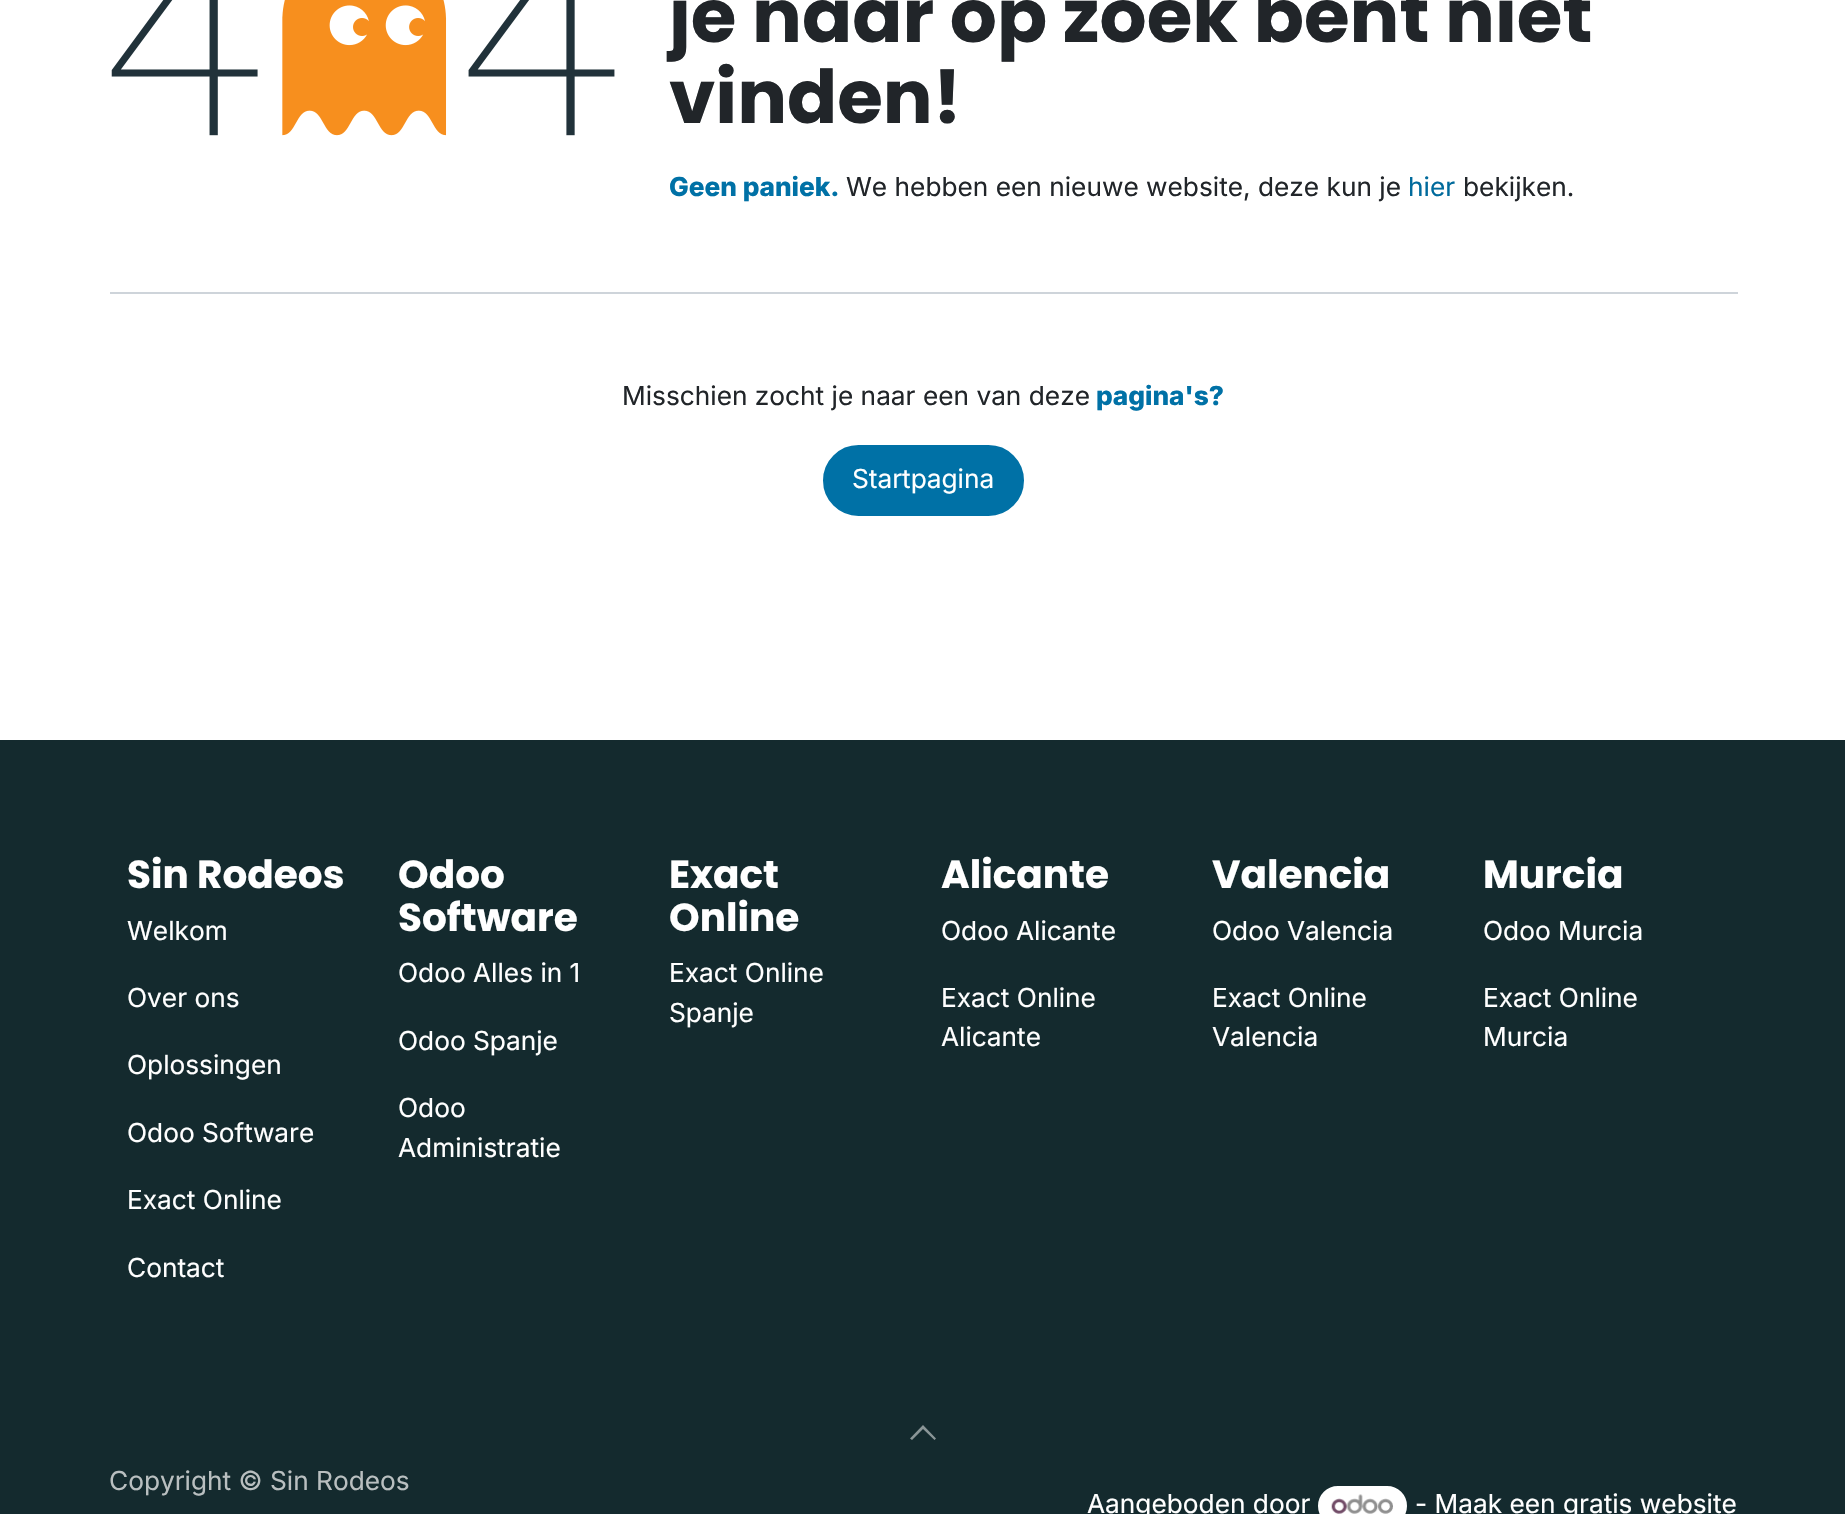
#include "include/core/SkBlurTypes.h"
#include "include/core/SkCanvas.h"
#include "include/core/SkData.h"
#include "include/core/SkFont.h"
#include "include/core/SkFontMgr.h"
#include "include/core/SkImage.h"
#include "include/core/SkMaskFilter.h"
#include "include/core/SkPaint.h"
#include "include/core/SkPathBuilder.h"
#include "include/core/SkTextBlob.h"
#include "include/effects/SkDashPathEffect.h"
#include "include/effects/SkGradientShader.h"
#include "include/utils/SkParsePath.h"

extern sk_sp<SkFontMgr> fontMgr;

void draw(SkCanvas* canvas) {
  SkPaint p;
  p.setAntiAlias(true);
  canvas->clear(SK_ColorWHITE);
  canvas->drawImageRect(SkImages::DeferredFromEncodedData(SkData::MakeFromFileName("images/1.png")), SkRect::MakeLTRB(111, 0, 615, 136), SkSamplingOptions());
  p.setColor(SkColorSetRGB(206, 212, 218));
  canvas->drawRect(SkRect::MakeLTRB(110, 292, 1738, 294), p);
  p.setColor(SkColorSetRGB(0, 113, 166));
  canvas->drawRoundRect(SkRect::MakeLTRB(824, 446, 1023, 515), 34.5f, 34.5f, p);
  p.setStyle(SkPaint::kStroke_Style);
  p.setStrokeWidth(2);
  canvas->drawRoundRect(SkRect::MakeLTRB(824, 446, 1023, 515), 34.5f, 34.5f, p);
  p.setStyle(SkPaint::kFill_Style);
  p.setColor(SkColorSetRGB(20, 42, 46));
  canvas->drawRect(SkRect::MakeLTRB(0, 740, 1845, 1514), p);
  p.setColor(SkColorSetRGB(138, 149, 151));
  canvas->drawPath(SkPathBuilder().moveTo(923, 1425).lineTo(936, 1438.5f).lineTo(934.5f, 1440).lineTo(923, 1429).lineTo(912, 1440).lineTo(910, 1438.5f).close().detach(), p);
  p.setColor(SK_ColorWHITE);
  canvas->drawRoundRect(SkRect::MakeLTRB(1319, 1487, 1406, 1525), 19, 19, p);
  p.setStyle(SkPaint::kStroke_Style);
  canvas->drawRoundRect(SkRect::MakeLTRB(1319, 1487, 1406, 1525), 19, 19, p);
  canvas->drawImageRect(SkImages::DeferredFromEncodedData(SkData::MakeFromFileName("images/2.png")), SkRect::MakeLTRB(1331, 1494, 1393, 1514), SkSamplingOptions());
  SkFont font1(fontMgr->matchFamilyStyle("Poppins", SkFontStyle::Bold()), 74);
  font1.setSubpixel(true);
  p.setStyle(SkPaint::kFill_Style);
  p.setColor(SkColorSetRGB(33, 37, 41));
  canvas->drawString("je naar op zoek bent niet", 669, 42, font1, p);
  canvas->drawString("vinden!", 669, 123, font1, p);
  SkFont font2(fontMgr->matchFamilyStyle("Inter", SkFontStyle(800, SkFontStyle::kNormal_Width, SkFontStyle::kUpright_Slant)), 26.25f);
  font2.setSubpixel(true);
  p.setColor(SkColorSetRGB(0, 113, 166));
  canvas->drawString("Geen paniek.", 669, 196, font2, p);
  SkFont font3(fontMgr->matchFamilyStyle("Inter", SkFontStyle::Normal()), 26.25f);
  font3.setSubpixel(true);
  p.setColor(SkColorSetRGB(33, 37, 41));
  canvas->drawString("We hebben een nieuwe website, deze kun je", 846, 196, font3, p);
  p.setColor(SkColorSetRGB(0, 106, 156));
  canvas->drawString("hier", 1408, 196, font3, p);
  p.setColor(SkColorSetRGB(33, 37, 41));
  canvas->drawString("bekijken.", 1463, 196, font3, p);
  canvas->drawString("Misschien zocht je naar een van deze", 622, 405, font3, p);
  p.setColor(SkColorSetRGB(0, 113, 166));
  canvas->drawString("pagina's?", 1096, 405, font2, p);
  p.setColor(SK_ColorWHITE);
  canvas->drawString("Startpagina", 852, 488, font3, p);
  SkFont font4(fontMgr->matchFamilyStyle("Poppins", SkFontStyle::Bold()), 39);
  font4.setSubpixel(true);
  canvas->drawString("Sin Rodeos", 127, 888, font4, p);
  canvas->drawString("Welkom", 127, 940, font3, p);
  canvas->drawString("Over ons", 127, 1007, font3, p);
  canvas->drawString("Oplossingen", 127, 1074, font3, p);
  canvas->drawString("Odoo Software", 127, 1142, font3, p);
  canvas->drawString("Exact Online", 127, 1209, font3, p);
  canvas->drawString("Contact", 127, 1277, font3, p);
  canvas->drawString("Odoo", 398, 888, font4, p);
  canvas->drawString("Software", 398, 931, font4, p);
  canvas->drawString("Odoo Alles in 1", 398, 982, font3, p);
  canvas->drawString("Odoo Spanje", 398, 1050, font3, p);
  canvas->drawString("Odoo", 398, 1117, font3, p);
  canvas->drawString("Administratie", 398, 1157, font3, p);
  canvas->drawString("Exact", 669, 888, font4, p);
  canvas->drawString("Online", 669, 931, font4, p);
  canvas->drawString("Exact Online", 669, 982, font3, p);
  canvas->drawString("Spanje", 669, 1022, font3, p);
  canvas->drawString("Alicante", 941, 888, font4, p);
  canvas->drawString("Odoo Alicante", 941, 940, font3, p);
  canvas->drawString("Exact Online", 941, 1007, font3, p);
  canvas->drawString("Alicante", 941, 1046, font3, p);
  canvas->drawString("Valencia", 1212, 888, font4, p);
  canvas->drawString("Odoo Valencia", 1212, 940, font3, p);
  canvas->drawString("Exact Online", 1212, 1007, font3, p);
  canvas->drawString("Valencia", 1212, 1046, font3, p);
  canvas->drawString("Murcia", 1483, 888, font4, p);
  canvas->drawString("Odoo Murcia", 1483, 940, font3, p);
  canvas->drawString("Exact Online", 1483, 1007, font3, p);
  canvas->drawString("Murcia", 1483, 1046, font3, p);
  p.setColor(SkColorSetRGB(185, 191, 192));
  canvas->drawString("Copyright © Sin Rodeos", 109, 1490, font3, p);
  p.setColor(SK_ColorWHITE);
  canvas->drawString("Aangeboden door", 1087, 1513, font3, p);
  canvas->drawString("- Maak een gratis website", 1415, 1513, font3, p);
}
